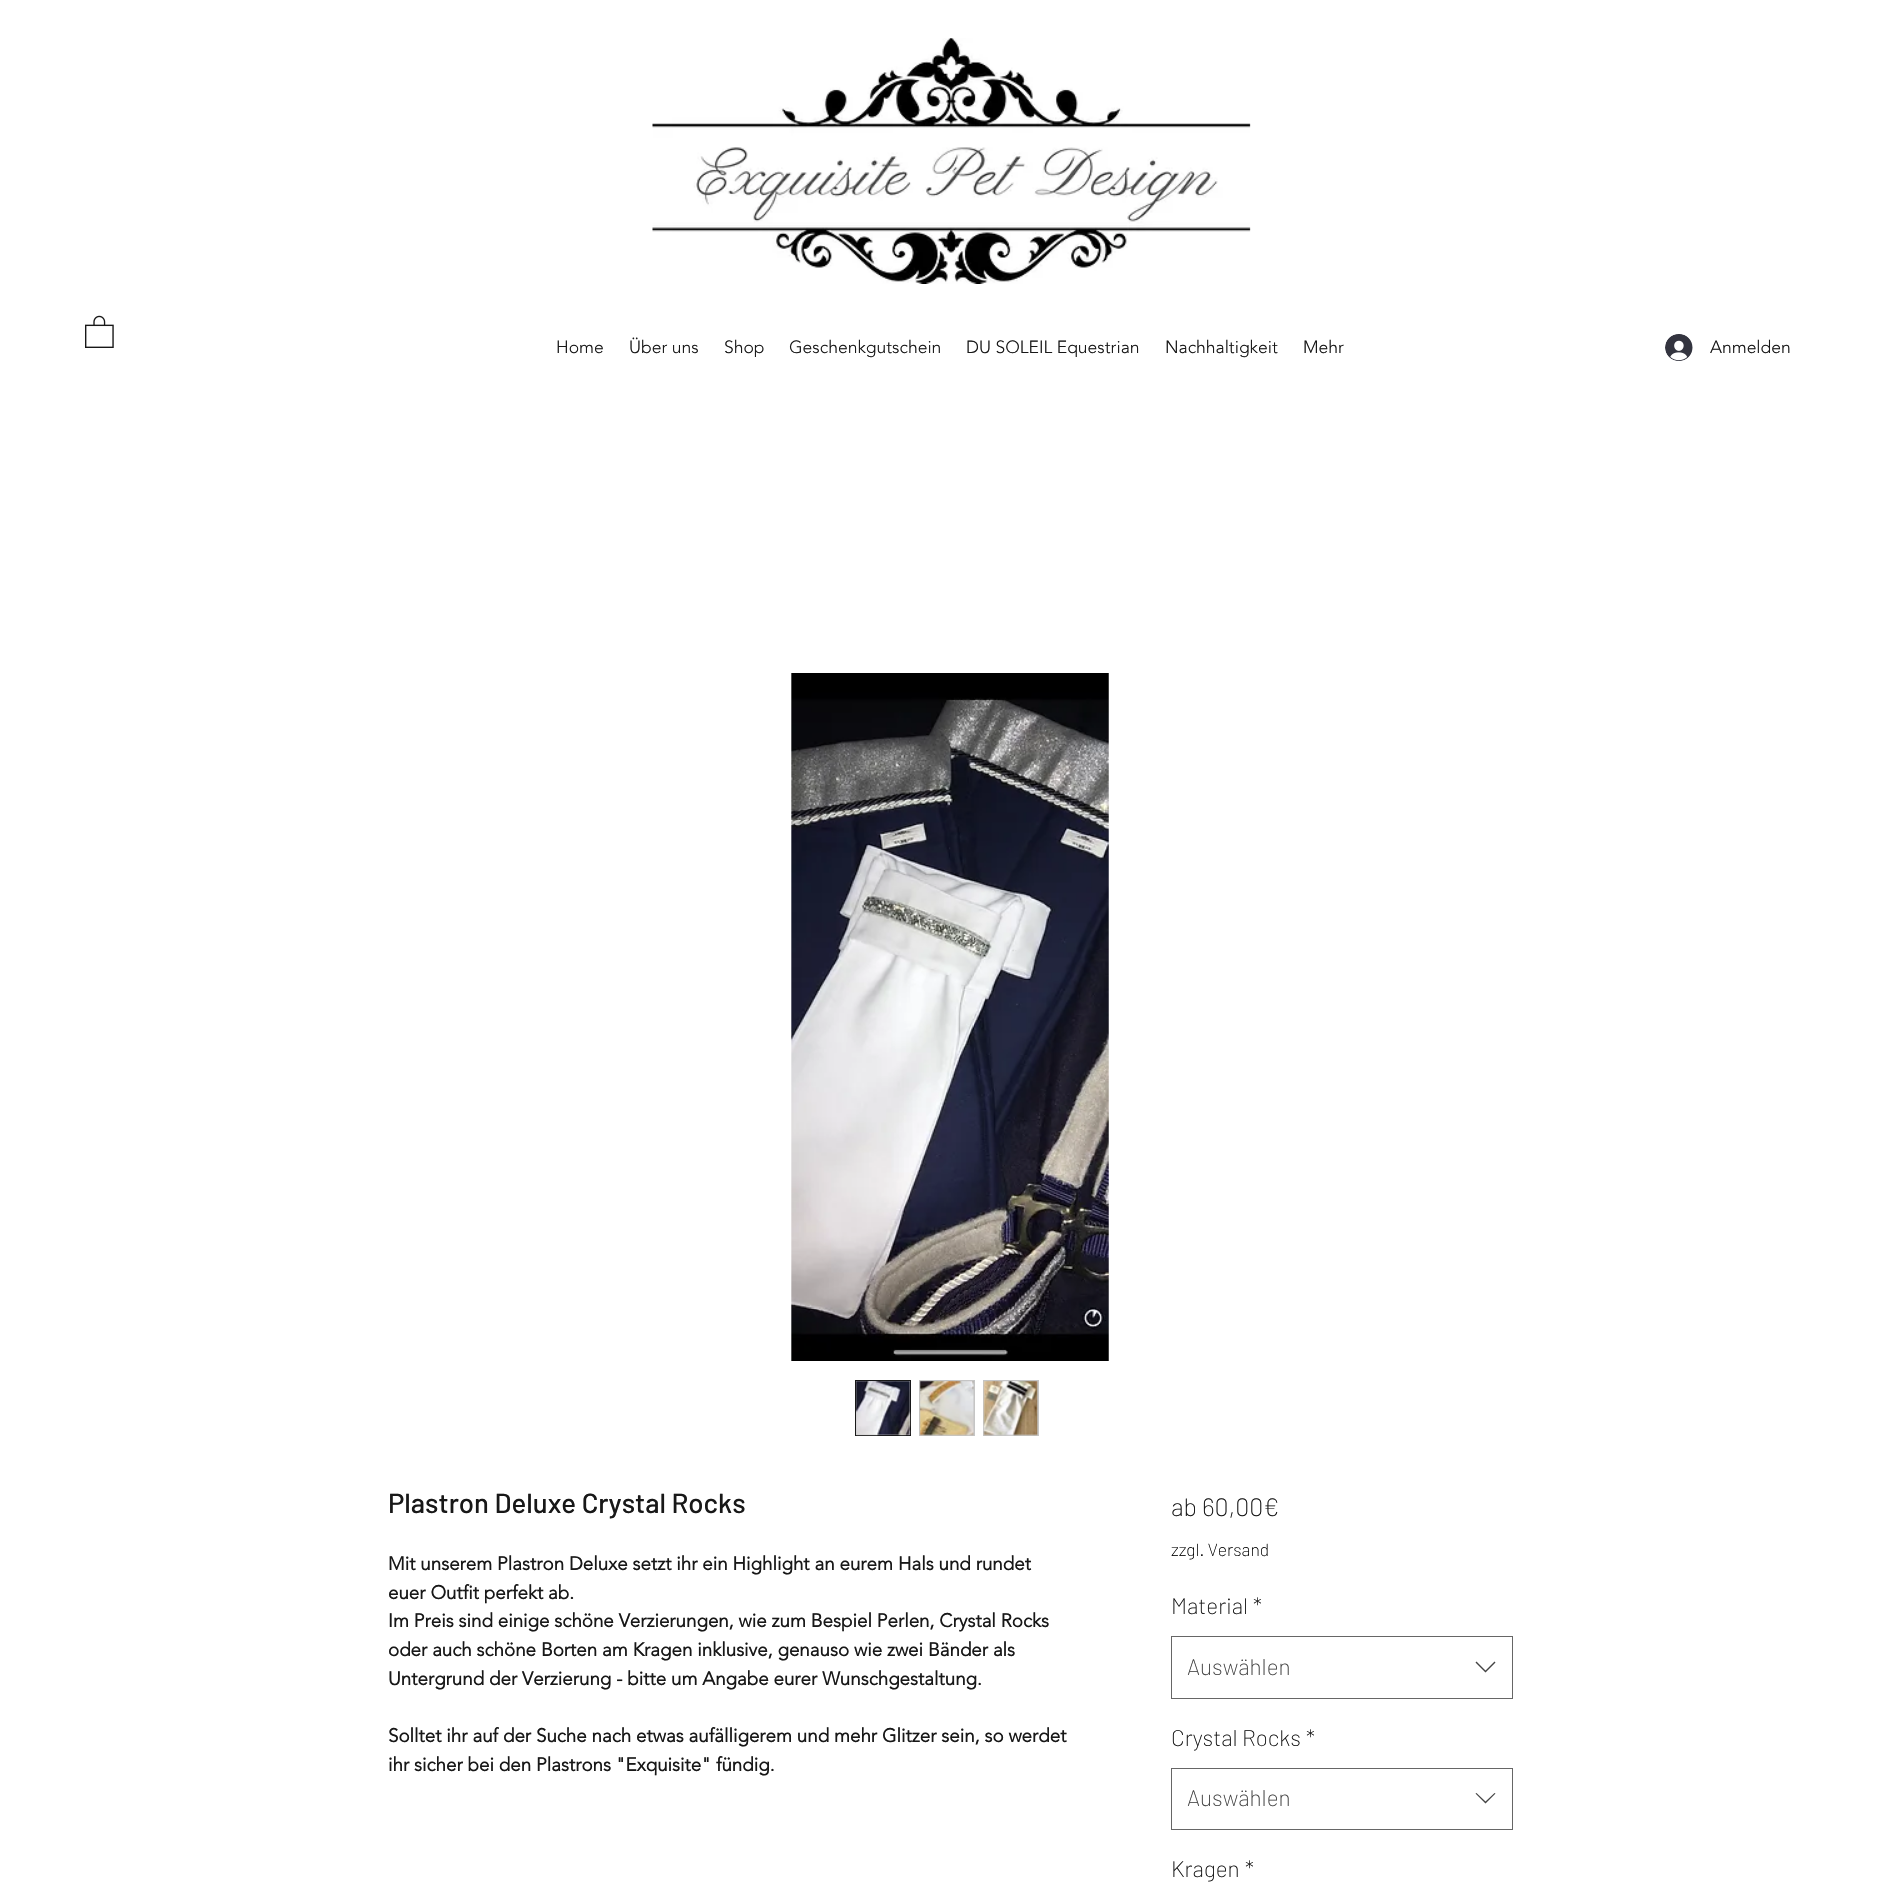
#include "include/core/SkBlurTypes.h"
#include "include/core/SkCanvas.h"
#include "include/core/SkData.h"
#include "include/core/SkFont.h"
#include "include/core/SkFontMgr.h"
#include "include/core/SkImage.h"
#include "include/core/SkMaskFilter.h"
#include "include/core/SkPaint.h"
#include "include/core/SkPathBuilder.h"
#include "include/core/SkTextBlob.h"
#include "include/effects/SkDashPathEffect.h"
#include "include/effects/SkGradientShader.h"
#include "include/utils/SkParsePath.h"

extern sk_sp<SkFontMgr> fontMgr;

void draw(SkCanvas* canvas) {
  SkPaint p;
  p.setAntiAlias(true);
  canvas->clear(SK_ColorWHITE);
  canvas->drawImageRect(SkImages::DeferredFromEncodedData(SkData::MakeFromFileName("images/1.png")), SkRect::MakeLTRB(652, 38, 1251, 284), SkSamplingOptions());
  canvas->drawImageRect(SkImages::DeferredFromEncodedData(SkData::MakeFromFileName("images/2.png")), SkRect::MakeLTRB(85, 315, 114, 348), SkSamplingOptions());
  canvas->drawImageRect(SkImages::DeferredFromEncodedData(SkData::MakeFromFileName("images/3.png")), SkRect::MakeLTRB(1665, 334, 1693, 361), SkSamplingOptions());
  canvas->drawImageRect(SkImages::DeferredFromEncodedData(SkData::MakeFromFileName("images/4.png")), SkRect::MakeLTRB(791, 673, 1109, 1361), SkSamplingOptions());
  p.setColor(SkColorSetRGB(197, 197, 197));
  canvas->drawRect(SkRect::MakeLTRB(855.5f, 1380.5f, 910.5f, 1435.5f), p);
  p.setStyle(SkPaint::kStroke_Style);
  p.setStrokeWidth(1);
  p.setColor(SkColorSetRGB(24, 24, 24));
  canvas->drawRect(SkRect::MakeLTRB(855.5f, 1380.5f, 910.5f, 1435.5f), p);
  canvas->drawImageRect(SkImages::DeferredFromEncodedData(SkData::MakeFromFileName("images/5.png")), SkRect::MakeLTRB(856, 1381, 911, 1436), SkSamplingOptions());
  p.setStyle(SkPaint::kFill_Style);
  p.setColor(SkColorSetRGB(197, 197, 197));
  canvas->drawRect(SkRect::MakeLTRB(919, 1380, 975, 1436), p);
  canvas->drawImageRect(SkImages::DeferredFromEncodedData(SkData::MakeFromFileName("images/6.png")), SkRect::MakeLTRB(919, 1381, 974, 1436), SkSamplingOptions());
  canvas->drawRect(SkRect::MakeLTRB(983, 1380, 1039, 1436), p);
  canvas->drawImageRect(SkImages::DeferredFromEncodedData(SkData::MakeFromFileName("images/7.png")), SkRect::MakeLTRB(983, 1381, 1038, 1436), SkSamplingOptions());
  p.setStyle(SkPaint::kStroke_Style);
  p.setColor(SkColorSetRGB(102, 102, 102));
  canvas->drawRect(SkRect::MakeLTRB(1171.5f, 1636.5f, 1512.5f, 1698.5f), p);
  p.setStyle(SkPaint::kFill_Style);
  p.setColor(SkColorSetRGB(68, 68, 68));
  canvas->drawPath(SkPathBuilder(SkPathFillType::kEvenOdd).moveTo(1494.5f, 1661.5f).lineTo(1495.5f, 1662.5f).lineTo(1485.5f, 1672.5f).lineTo(1475.5f, 1662.5f).lineTo(1476.5f, 1661.5f).lineTo(1485.5f, 1670.5f).close().detach(), p);
  p.setStyle(SkPaint::kStroke_Style);
  p.setColor(SkColorSetRGB(102, 102, 102));
  canvas->drawRect(SkRect::MakeLTRB(1171.5f, 1768.5f, 1512.5f, 1829.5f), p);
  p.setStyle(SkPaint::kFill_Style);
  p.setColor(SkColorSetRGB(68, 68, 68));
  canvas->drawPath(SkPathBuilder(SkPathFillType::kEvenOdd).moveTo(1494.5f, 1793).lineTo(1495.5f, 1793.5f).lineTo(1485.5f, 1803.5f).lineTo(1475.5f, 1793.5f).lineTo(1476.5f, 1793).lineTo(1485.5f, 1801.5f).close().detach(), p);
  SkFont font1(fontMgr->matchFamilyStyle("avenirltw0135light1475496", SkFontStyle(300, SkFontStyle::kNormal_Width, SkFontStyle::kUpright_Slant)), 17.5f);
  font1.setSubpixel(true);
  p.setColor(SkColorSetRGB(24, 24, 24));
  canvas->drawString("Home", 556, 353, font1, p);
  canvas->drawString("Über uns", 629, 353, font1, p);
  canvas->drawString("Shop", 724, 353, font1, p);
  canvas->drawString("Geschenkgutschein", 789, 353, font1, p);
  canvas->drawString("DU SOLEIL Equestrian", 966, 353, font1, p);
  canvas->drawString("Nachhaltigkeit", 1165, 353, font1, p);
  canvas->drawString("Mehr", 1303, 353, font1, p);
  canvas->drawString("Anmelden", 1710, 353, font1, p);
  SkFont font2(fontMgr->matchFamilyStyle("Barlow", SkFontStyle(500, SkFontStyle::kNormal_Width, SkFontStyle::kUpright_Slant)), 27.5f);
  font2.setSubpixel(true);
  canvas->drawString("Plastron Deluxe Crystal Rocks", 388, 1513, font2, p);
  SkFont font3(fontMgr->matchFamilyStyle("avenirltw0135light1475496", SkFontStyle::Bold()), 18.75f);
  font3.setSubpixel(true);
  canvas->drawString("Mit unserem Plastron Deluxe setzt ihr ein Highlight an eurem Hals und rundet", 388, 1570, font3, p);
  canvas->drawString("euer Outfit perfekt ab.", 388, 1599, font3, p);
  canvas->drawString("Im Preis sind einige schöne Verzierungen, wie zum Bespiel Perlen, Crystal Rocks", 388, 1627, font3, p);
  canvas->drawString("oder auch schöne Borten am Kragen inklusive, genauso wie zwei Bänder als", 388, 1656, font3, p);
  canvas->drawString("Untergrund der Verzierung - bitte um Angabe eurer Wunschgestaltung.", 388, 1685, font3, p);
  canvas->drawString("Solltet ihr auf der Suche nach etwas aufälligerem und mehr Glitzer sein, so werdet", 388, 1742, font3, p);
  canvas->drawString("ihr sicher bei den Plastrons \"Exquisite\" fündig.", 388, 1771, font3, p);
  SkFont font4(fontMgr->matchFamilyStyle("Barlow", SkFontStyle(200, SkFontStyle::kNormal_Width, SkFontStyle::kUpright_Slant)), 25);
  font4.setSubpixel(true);
  canvas->drawString("ab 60,00€", 1171, 1516, font4, p);
  SkFont font5(fontMgr->matchFamilyStyle("Barlow", SkFontStyle(200, SkFontStyle::kNormal_Width, SkFontStyle::kUpright_Slant)), 17.5f);
  font5.setSubpixel(true);
  p.setColor(SK_ColorBLACK);
  canvas->drawString("zzgl. Versand", 1171, 1556, font5, p);
  SkFont font6(fontMgr->matchFamilyStyle("Barlow", SkFontStyle(200, SkFontStyle::kNormal_Width, SkFontStyle::kUpright_Slant)), 22.5f);
  font6.setSubpixel(true);
  p.setColor(SkColorSetRGB(24, 24, 24));
  canvas->drawString("Material", 1171, 1614, font6, p);
  canvas->drawString("*", 1253, 1614, font6, p);
  p.setColor(SkColorSetRGB(68, 68, 68));
  canvas->drawString("Auswählen", 1187, 1675, font6, p);
  p.setColor(SkColorSetRGB(24, 24, 24));
  canvas->drawString("Crystal Rocks", 1171, 1746, font6, p);
  canvas->drawString("*", 1306, 1746, font6, p);
  p.setColor(SkColorSetRGB(68, 68, 68));
  canvas->drawString("Auswählen", 1187, 1806, font6, p);
  p.setColor(SkColorSetRGB(24, 24, 24));
  canvas->drawString("Kragen", 1171, 1877, font6, p);
  canvas->drawString("*", 1245, 1877, font6, p);
}
